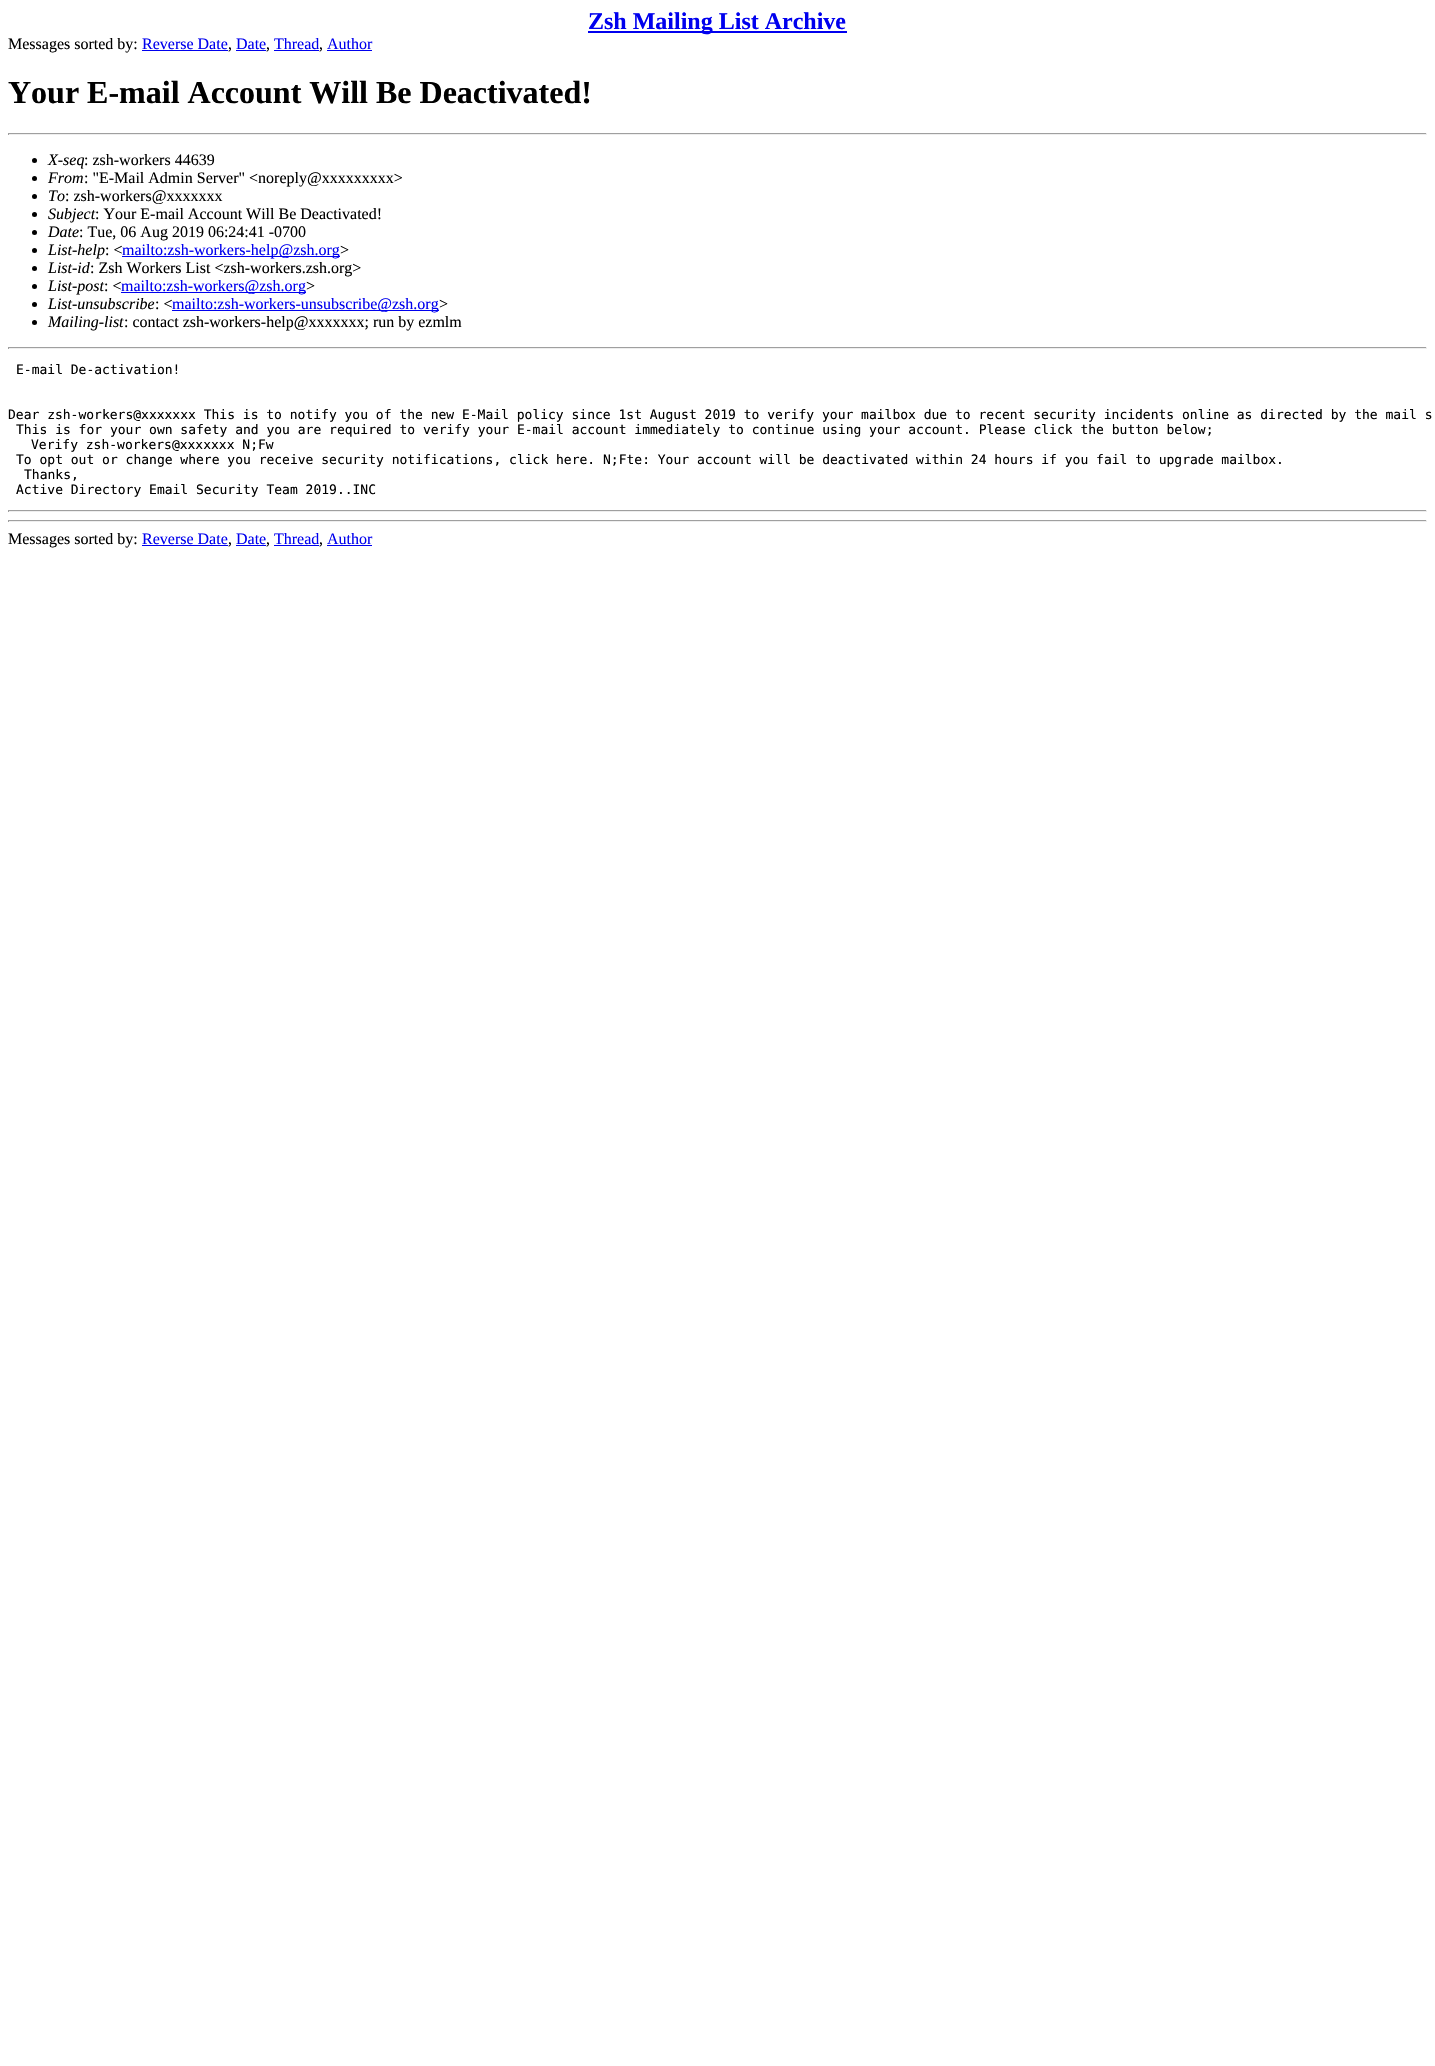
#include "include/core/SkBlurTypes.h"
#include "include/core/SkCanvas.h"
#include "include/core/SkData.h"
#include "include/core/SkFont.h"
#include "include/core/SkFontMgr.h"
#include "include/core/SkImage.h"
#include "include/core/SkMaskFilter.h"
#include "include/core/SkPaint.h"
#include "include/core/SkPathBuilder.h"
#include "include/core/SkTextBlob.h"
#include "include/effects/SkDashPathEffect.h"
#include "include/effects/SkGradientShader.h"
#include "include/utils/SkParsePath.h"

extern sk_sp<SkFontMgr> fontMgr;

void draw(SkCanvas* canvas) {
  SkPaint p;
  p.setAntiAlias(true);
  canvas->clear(SK_ColorWHITE);
  p.setColor(SkColorSetRGB(0, 0, 238));
  canvas->drawRect(SkRect::MakeLTRB(588, 31, 847, 33), p);
  canvas->drawRect(SkRect::MakeLTRB(142, 50, 228, 51), p);
  canvas->drawRect(SkRect::MakeLTRB(236, 50, 266, 51), p);
  canvas->drawRect(SkRect::MakeLTRB(274, 50, 319, 51), p);
  canvas->drawRect(SkRect::MakeLTRB(327, 50, 372, 51), p);
  p.setColor(SkColorSetRGB(159, 159, 159));
  canvas->drawRect(SkRect::MakeLTRB(8, 133, 1427, 134), p);
  p.setColor(SkColorSetRGB(238, 238, 238));
  canvas->drawRect(SkRect::MakeLTRB(1426, 133, 1427, 135), p);
  canvas->drawRect(SkRect::MakeLTRB(8, 134, 1427, 135), p);
  p.setColor(SkColorSetRGB(159, 159, 159));
  canvas->drawRect(SkRect::MakeLTRB(8, 133, 9, 135), p);
  p.setColor(SK_ColorBLACK);
  canvas->drawCircle(34.5f, 160.5f, 2.5f, p);
  canvas->drawCircle(34.5f, 178.5f, 2.5f, p);
  canvas->drawCircle(34.5f, 196.5f, 2.5f, p);
  canvas->drawCircle(34.5f, 214.5f, 2.5f, p);
  canvas->drawCircle(34.5f, 232.5f, 2.5f, p);
  canvas->drawCircle(34.5f, 250.5f, 2.5f, p);
  p.setColor(SkColorSetRGB(0, 0, 238));
  canvas->drawRect(SkRect::MakeLTRB(122, 256, 340, 257), p);
  p.setColor(SK_ColorBLACK);
  canvas->drawCircle(34.5f, 268.5f, 2.5f, p);
  canvas->drawCircle(34.5f, 286.5f, 2.5f, p);
  p.setColor(SkColorSetRGB(0, 0, 238));
  canvas->drawRect(SkRect::MakeLTRB(121, 292, 306, 293), p);
  p.setColor(SK_ColorBLACK);
  canvas->drawCircle(34.5f, 304.5f, 2.5f, p);
  p.setColor(SkColorSetRGB(0, 0, 238));
  canvas->drawRect(SkRect::MakeLTRB(172, 310, 439, 311), p);
  p.setColor(SK_ColorBLACK);
  canvas->drawCircle(34.5f, 322.5f, 2.5f, p);
  p.setColor(SkColorSetRGB(159, 159, 159));
  canvas->drawRect(SkRect::MakeLTRB(8, 347, 1427, 348), p);
  p.setColor(SkColorSetRGB(238, 238, 238));
  canvas->drawRect(SkRect::MakeLTRB(1426, 347, 1427, 349), p);
  canvas->drawRect(SkRect::MakeLTRB(8, 348, 1427, 349), p);
  p.setColor(SkColorSetRGB(159, 159, 159));
  canvas->drawRect(SkRect::MakeLTRB(8, 347, 9, 349), p);
  canvas->drawRect(SkRect::MakeLTRB(8, 510, 1427, 511), p);
  p.setColor(SkColorSetRGB(238, 238, 238));
  canvas->drawRect(SkRect::MakeLTRB(1426, 510, 1427, 512), p);
  canvas->drawRect(SkRect::MakeLTRB(8, 511, 1427, 512), p);
  p.setColor(SkColorSetRGB(159, 159, 159));
  canvas->drawRect(SkRect::MakeLTRB(8, 510, 9, 512), p);
  canvas->drawRect(SkRect::MakeLTRB(8, 520, 1427, 521), p);
  p.setColor(SkColorSetRGB(238, 238, 238));
  canvas->drawRect(SkRect::MakeLTRB(1426, 520, 1427, 522), p);
  canvas->drawRect(SkRect::MakeLTRB(8, 521, 1427, 522), p);
  p.setColor(SkColorSetRGB(159, 159, 159));
  canvas->drawRect(SkRect::MakeLTRB(8, 520, 9, 522), p);
  p.setColor(SkColorSetRGB(0, 0, 238));
  canvas->drawRect(SkRect::MakeLTRB(142, 545, 228, 546), p);
  canvas->drawRect(SkRect::MakeLTRB(236, 545, 266, 546), p);
  canvas->drawRect(SkRect::MakeLTRB(274, 545, 319, 546), p);
  canvas->drawRect(SkRect::MakeLTRB(327, 545, 372, 546), p);
  SkFont font1(fontMgr->matchFamilyStyle("Liberation Serif", SkFontStyle::Bold()), 24);
  font1.setSubpixel(true);
  canvas->drawString("Zsh Mailing List Archive", 588, 29, font1, p);
  SkFont font2(fontMgr->matchFamilyStyle("Liberation Serif", SkFontStyle::Normal()), 16);
  font2.setSubpixel(true);
  p.setColor(SK_ColorBLACK);
  canvas->drawString("Messages sorted by:", 8, 49, font2, p);
  p.setColor(SkColorSetRGB(0, 0, 238));
  canvas->drawString("Reverse Date", 142, 49, font2, p);
  p.setColor(SK_ColorBLACK);
  canvas->drawString(",", 228, 49, font2, p);
  p.setColor(SkColorSetRGB(0, 0, 238));
  canvas->drawString("Date", 236, 49, font2, p);
  p.setColor(SK_ColorBLACK);
  canvas->drawString(",", 266, 49, font2, p);
  p.setColor(SkColorSetRGB(0, 0, 238));
  canvas->drawString("Thread", 274, 49, font2, p);
  p.setColor(SK_ColorBLACK);
  canvas->drawString(",", 319, 49, font2, p);
  p.setColor(SkColorSetRGB(0, 0, 238));
  canvas->drawString("Author", 327, 49, font2, p);
  SkFont font3(fontMgr->matchFamilyStyle("Liberation Serif", SkFontStyle::Bold()), 32);
  font3.setSubpixel(true);
  p.setColor(SK_ColorBLACK);
  canvas->drawString("Your E-mail Account Will Be Deactivated!", 8, 103, font3, p);
  SkFont font4(fontMgr->matchFamilyStyle("Liberation Serif", SkFontStyle::Italic()), 16);
  font4.setSubpixel(true);
  canvas->drawString("X-seq", 48, 165, font4, p);
  canvas->drawString(": zsh-workers 44639", 84, 165, font2, p);
  canvas->drawString("From", 48, 183, font4, p);
  canvas->drawString(": \"E-Mail Admin Server\" <noreply@xxxxxxxxx>", 84, 183, font2, p);
  canvas->drawString("To", 48, 201, font4, p);
  canvas->drawString(": zsh-workers@xxxxxxx", 65, 201, font2, p);
  canvas->drawString("Subject", 48, 219, font4, p);
  canvas->drawString(": Your E-mail Account Will Be Deactivated!", 95, 219, font2, p);
  canvas->drawString("Date", 48, 237, font4, p);
  canvas->drawString(": Tue, 06 Aug 2019 06:24:41 -0700", 79, 237, font2, p);
  canvas->drawString("List-help", 48, 255, font4, p);
  canvas->drawString(": <", 105, 255, font2, p);
  p.setColor(SkColorSetRGB(0, 0, 238));
  canvas->drawString("mailto:zsh-workers-help@zsh.org", 122, 255, font2, p);
  p.setColor(SK_ColorBLACK);
  canvas->drawString(">", 340, 255, font2, p);
  canvas->drawString("List-id", 48, 273, font4, p);
  canvas->drawString(": Zsh Workers List <zsh-workers.zsh.org>", 90, 273, font2, p);
  canvas->drawString("List-post", 48, 291, font4, p);
  canvas->drawString(": <", 104, 291, font2, p);
  p.setColor(SkColorSetRGB(0, 0, 238));
  canvas->drawString("mailto:zsh-workers@zsh.org", 121, 291, font2, p);
  p.setColor(SK_ColorBLACK);
  canvas->drawString(">", 306, 291, font2, p);
  canvas->drawString("List-unsubscribe", 48, 309, font4, p);
  canvas->drawString(": <", 155, 309, font2, p);
  p.setColor(SkColorSetRGB(0, 0, 238));
  canvas->drawString("mailto:zsh-workers-unsubscribe@zsh.org", 172, 309, font2, p);
  p.setColor(SK_ColorBLACK);
  canvas->drawString(">", 439, 309, font2, p);
  canvas->drawString("Mailing-list", 48, 327, font4, p);
  canvas->drawString(": contact zsh-workers-help@xxxxxxx; run by ezmlm", 124, 327, font2, p);
  SkFont font5(fontMgr->matchFamilyStyle("DejaVu Sans Mono", SkFontStyle::Normal()), 13);
  font5.setSubpixel(true);
  canvas->drawString("E-mail De-activation!", 16, 374, font5, p);
  canvas->drawString("Dear zsh-workers@xxxxxxx This is to notify you of the new E-Mail policy since 1st August 2019 to verify your mailbox due to recent security incidents online as directed by the mail s", 8, 419, font5, p);
  canvas->drawString("This is for your own safety and you are required to verify your E-mail account immediately to continue using your account. Please click the button below;", 16, 434, font5, p);
  canvas->drawString("Verify zsh-workers@xxxxxxx N;Fw", 31, 449, font5, p);
  canvas->drawString("To opt out or change where you receive security notifications, click here. N;Fte: Your account will be deactivated within 24 hours if you fail to upgrade mailbox.", 16, 464, font5, p);
  canvas->drawString("Thanks,", 24, 479, font5, p);
  canvas->drawString("Active Directory Email Security Team 2019..INC", 16, 494, font5, p);
  canvas->drawString("Messages sorted by:", 8, 544, font2, p);
  p.setColor(SkColorSetRGB(0, 0, 238));
  canvas->drawString("Reverse Date", 142, 544, font2, p);
  p.setColor(SK_ColorBLACK);
  canvas->drawString(",", 228, 544, font2, p);
  p.setColor(SkColorSetRGB(0, 0, 238));
  canvas->drawString("Date", 236, 544, font2, p);
  p.setColor(SK_ColorBLACK);
  canvas->drawString(",", 266, 544, font2, p);
  p.setColor(SkColorSetRGB(0, 0, 238));
  canvas->drawString("Thread", 274, 544, font2, p);
  p.setColor(SK_ColorBLACK);
  canvas->drawString(",", 319, 544, font2, p);
  p.setColor(SkColorSetRGB(0, 0, 238));
  canvas->drawString("Author", 327, 544, font2, p);
}
